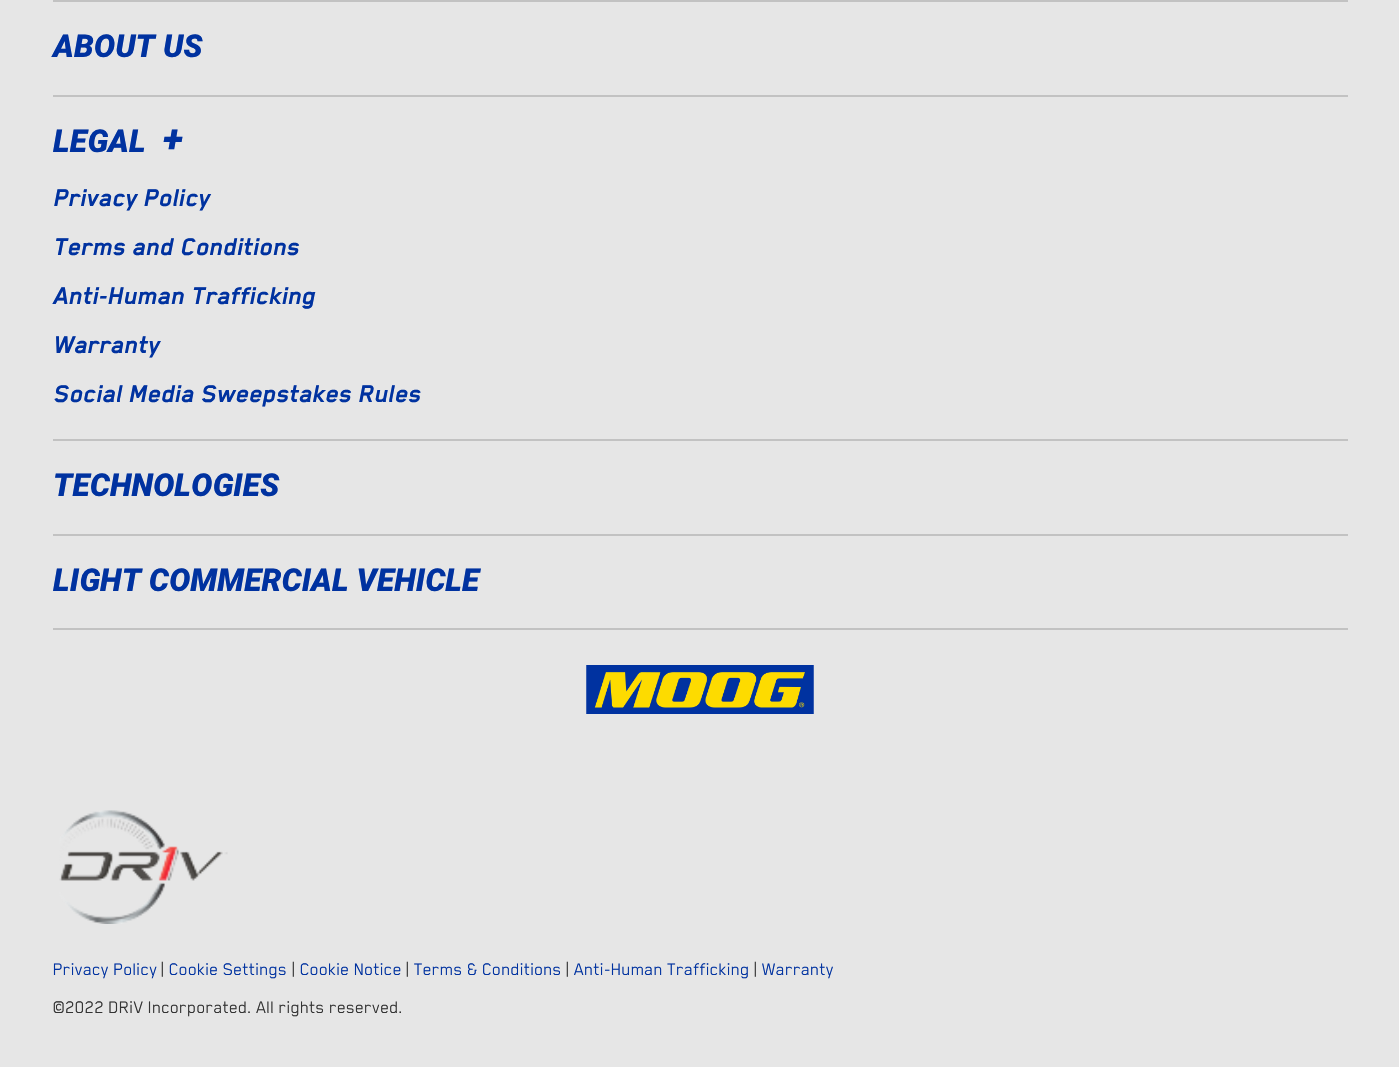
#include "include/core/SkBlurTypes.h"
#include "include/core/SkCanvas.h"
#include "include/core/SkData.h"
#include "include/core/SkFont.h"
#include "include/core/SkFontMgr.h"
#include "include/core/SkImage.h"
#include "include/core/SkMaskFilter.h"
#include "include/core/SkPaint.h"
#include "include/core/SkPathBuilder.h"
#include "include/core/SkTextBlob.h"
#include "include/effects/SkDashPathEffect.h"
#include "include/effects/SkGradientShader.h"
#include "include/utils/SkParsePath.h"

extern sk_sp<SkFontMgr> fontMgr;

void draw(SkCanvas* canvas) {
  SkPaint p;
  p.setAntiAlias(true);
  canvas->clear(SkColorSetRGB(230, 230, 230));
  p.setColor(SkColorSetRGB(194, 194, 194));
  canvas->drawRect(SkRect::MakeLTRB(53, 0, 1348, 2), p);
  canvas->drawRect(SkRect::MakeLTRB(53, 95, 1348, 97), p);
  canvas->drawRect(SkRect::MakeLTRB(53, 439, 1348, 441), p);
  canvas->drawRect(SkRect::MakeLTRB(53, 534, 1348, 536), p);
  canvas->drawRect(SkRect::MakeLTRB(53, 628, 1348, 630), p);
  canvas->drawImageRect(SkImages::DeferredFromEncodedData(SkData::MakeFromFileName("images/1.png")), SkRect::MakeLTRB(586, 665, 814, 714), SkSamplingOptions());
  canvas->drawImageRect(SkImages::DeferredFromEncodedData(SkData::MakeFromFileName("images/2.png")), SkRect::MakeLTRB(59, 810, 228, 924), SkSamplingOptions());
  SkFont font1(fontMgr->matchFamilyStyle("Roboto", SkFontStyle(900, SkFontStyle::kNormal_Width, SkFontStyle::kItalic_Slant)), 31.5f);
  font1.setSubpixel(true);
  p.setColor(SkColorSetRGB(0, 50, 160));
  canvas->drawString("ABOUT US", 53, 57, font1, p);
  canvas->drawString("LEGAL", 53, 152, font1, p);
  SkFont font2(fontMgr->matchFamilyStyle("Roboto", SkFontStyle(900, SkFontStyle::kNormal_Width, SkFontStyle::kItalic_Slant)), 38);
  font2.setSubpixel(true);
  canvas->drawString("+", 163, 152, font2, p);
  SkFont font3(fontMgr->matchFamilyStyle("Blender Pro", SkFontStyle::BoldItalic()), 28);
  font3.setSubpixel(true);
  canvas->drawString("Privacy Policy", 53, 206, font3, p);
  canvas->drawString("Terms and Conditions", 53, 255, font3, p);
  canvas->drawString("Anti-Human Trafficking", 53, 304, font3, p);
  canvas->drawString("Warranty", 53, 353, font3, p);
  canvas->drawString("Social Media Sweepstakes Rules", 53, 402, font3, p);
  canvas->drawString("TECHNOLOGIES", 53, 496, font1, p);
  canvas->drawString("LIGHT COMMERCIAL VEHICLE", 53, 591, font1, p);
  SkFont font4(fontMgr->matchFamilyStyle("Blender Pro", SkFontStyle::Normal()), 19.25f);
  font4.setSubpixel(true);
  canvas->drawString("Privacy Policy", 53, 975, font4, p);
  p.setColor(SkColorSetRGB(51, 51, 51));
  canvas->drawString("|", 161, 975, font4, p);
  p.setColor(SkColorSetRGB(0, 50, 160));
  canvas->drawString("Cookie Settings", 169, 975, font4, p);
  p.setColor(SkColorSetRGB(51, 51, 51));
  canvas->drawString("|", 292, 975, font4, p);
  p.setColor(SkColorSetRGB(0, 50, 160));
  canvas->drawString("Cookie Notice", 300, 975, font4, p);
  p.setColor(SkColorSetRGB(51, 51, 51));
  canvas->drawString("|", 406, 975, font4, p);
  p.setColor(SkColorSetRGB(0, 50, 160));
  canvas->drawString("Terms & Conditions", 414, 975, font4, p);
  p.setColor(SkColorSetRGB(51, 51, 51));
  canvas->drawString("|", 566, 975, font4, p);
  p.setColor(SkColorSetRGB(0, 50, 160));
  canvas->drawString("Anti-Human Trafficking", 574, 975, font4, p);
  p.setColor(SkColorSetRGB(51, 51, 51));
  canvas->drawString("|", 754, 975, font4, p);
  p.setColor(SkColorSetRGB(0, 50, 160));
  canvas->drawString("Warranty", 762, 975, font4, p);
  p.setColor(SkColorSetRGB(51, 51, 51));
  canvas->drawString("©2022 DRiV Incorporated. All rights reserved.", 53, 1013, font4, p);
}
